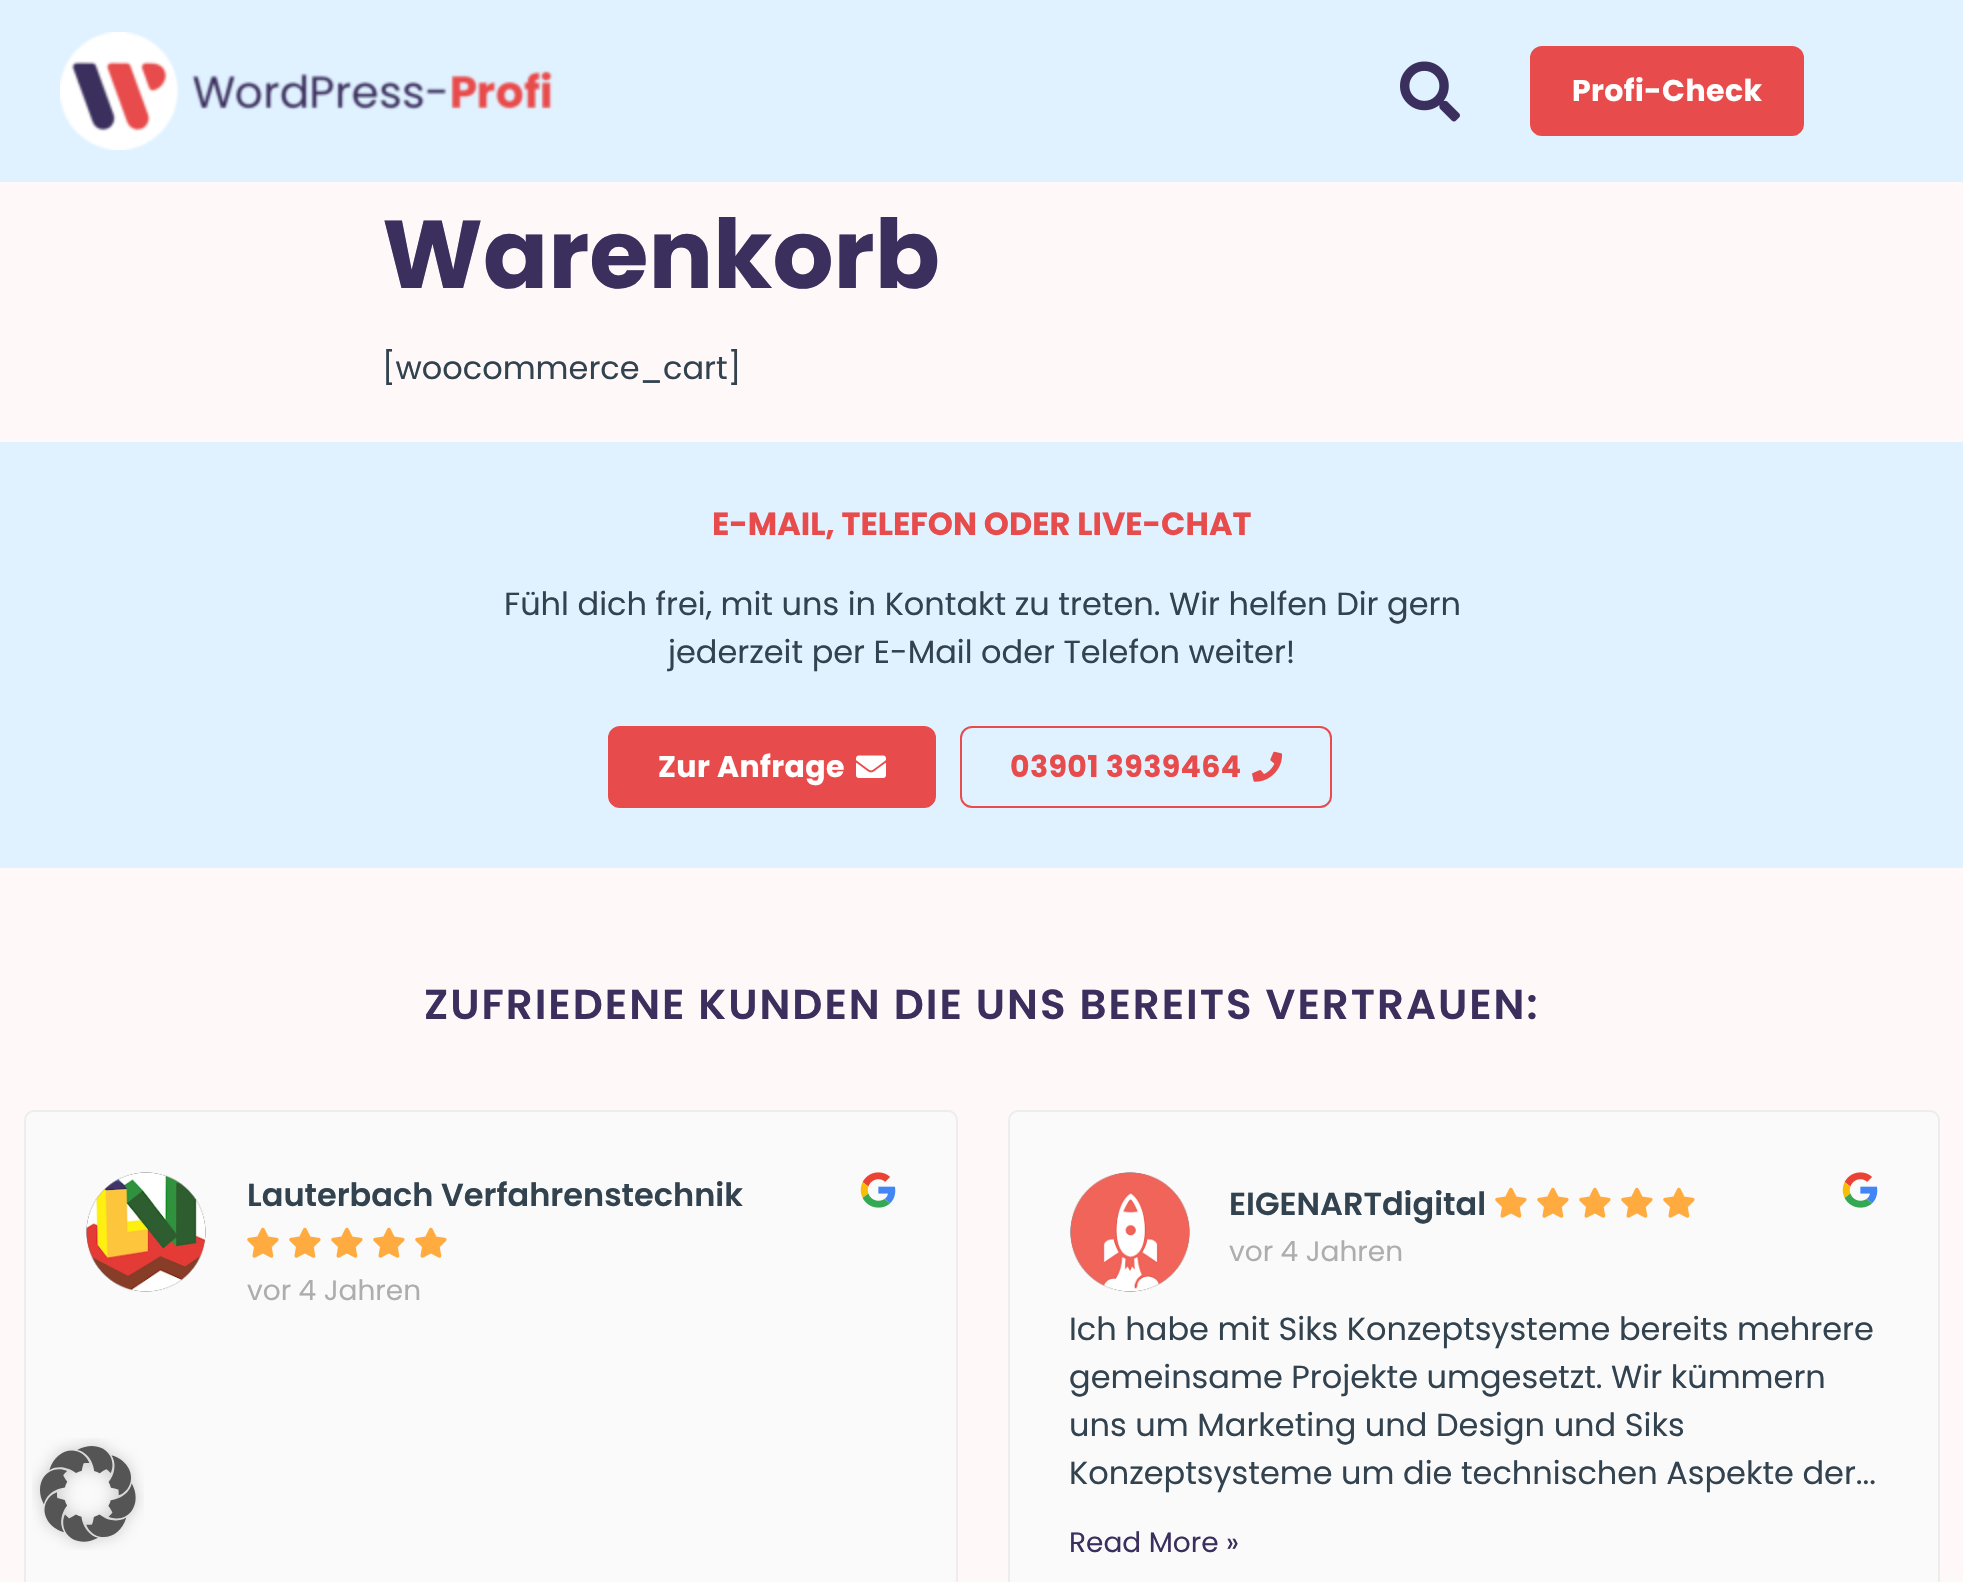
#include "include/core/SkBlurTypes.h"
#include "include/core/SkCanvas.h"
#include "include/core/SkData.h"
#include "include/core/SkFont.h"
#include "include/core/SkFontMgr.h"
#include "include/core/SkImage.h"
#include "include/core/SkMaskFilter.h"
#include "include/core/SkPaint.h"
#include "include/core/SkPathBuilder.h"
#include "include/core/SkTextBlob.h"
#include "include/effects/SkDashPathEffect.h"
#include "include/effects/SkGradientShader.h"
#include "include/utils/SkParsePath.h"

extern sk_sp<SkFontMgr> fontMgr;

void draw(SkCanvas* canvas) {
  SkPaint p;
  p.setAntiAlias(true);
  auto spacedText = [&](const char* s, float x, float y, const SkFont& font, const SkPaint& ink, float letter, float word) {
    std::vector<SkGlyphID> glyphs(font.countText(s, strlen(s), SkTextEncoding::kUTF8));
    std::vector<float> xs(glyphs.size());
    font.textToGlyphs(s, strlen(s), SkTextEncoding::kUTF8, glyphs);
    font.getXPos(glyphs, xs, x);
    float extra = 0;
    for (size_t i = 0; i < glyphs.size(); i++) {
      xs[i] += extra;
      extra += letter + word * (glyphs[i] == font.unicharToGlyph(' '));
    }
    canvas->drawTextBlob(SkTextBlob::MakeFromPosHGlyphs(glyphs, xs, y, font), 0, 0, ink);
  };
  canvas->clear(SkColorSetRGB(255, 248, 248));
  p.setColor(SkColorSetRGB(224, 242, 255));
  canvas->drawRect(SkRect::MakeLTRB(0, 0, 1963, 182), p);
  canvas->drawImageRect(SkImages::DeferredFromEncodedData(SkData::MakeFromFileName("images/1.png")), SkRect::MakeLTRB(60, 32, 553, 150), SkSamplingOptions());
  canvas->drawImageRect(SkImages::DeferredFromEncodedData(SkData::MakeFromFileName("images/2.png")), SkRect::MakeLTRB(1400, 61, 1460, 122), SkSamplingOptions());
  p.setColor(SkColorSetRGB(232, 75, 75));
  canvas->drawRoundRect(SkRect::MakeLTRB(1531, 47, 1803, 135), 11, 11, p);
  p.setStyle(SkPaint::kStroke_Style);
  p.setStrokeWidth(2);
  canvas->drawRoundRect(SkRect::MakeLTRB(1531, 47, 1803, 135), 11, 11, p);
  p.setStyle(SkPaint::kFill_Style);
  p.setColor(SkColorSetRGB(250, 250, 250));
  canvas->drawRoundRect(SkRect::MakeLTRB(25, 1111, 957, 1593), 9, 9, p);
  p.setStyle(SkPaint::kStroke_Style);
  p.setColor(SkColorSetRGB(237, 237, 237));
  canvas->drawRoundRect(SkRect::MakeLTRB(25, 1111, 957, 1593), 9, 9, p);
  canvas->drawImageRect(SkImages::DeferredFromEncodedData(SkData::MakeFromFileName("images/3.png")), SkRect::MakeLTRB(32, 1438, 144, 1550), SkSamplingOptions());
  p.setStyle(SkPaint::kFill_Style);
  p.setColor(SkColorSetRGB(224, 242, 255));
  canvas->drawRect(SkRect::MakeLTRB(0, 442, 1963, 868), p);
  p.setColor(SkColorSetRGB(232, 75, 75));
  canvas->drawRoundRect(SkRect::MakeLTRB(609, 727, 935, 807), 11, 11, p);
  p.setStyle(SkPaint::kStroke_Style);
  canvas->drawRoundRect(SkRect::MakeLTRB(609, 727, 935, 807), 11, 11, p);
  canvas->drawImageRect(SkImages::DeferredFromEncodedData(SkData::MakeFromFileName("images/4.png")), SkRect::MakeLTRB(856, 755, 886, 778), SkSamplingOptions());
  canvas->drawRoundRect(SkRect::MakeLTRB(961, 727, 1331, 807), 11, 11, p);
  canvas->drawImageRect(SkImages::DeferredFromEncodedData(SkData::MakeFromFileName("images/5.png")), SkRect::MakeLTRB(1252, 751, 1283, 782), SkSamplingOptions());
  canvas->drawImageRect(SkImages::DeferredFromEncodedData(SkData::MakeFromFileName("images/6.png")), SkRect::MakeLTRB(86, 1172, 206, 1292), SkSamplingOptions());
  canvas->drawImageRect(SkImages::DeferredFromEncodedData(SkData::MakeFromFileName("images/7.png")), SkRect::MakeLTRB(247, 1227, 279, 1258), SkSamplingOptions());
  canvas->drawImageRect(SkImages::DeferredFromEncodedData(SkData::MakeFromFileName("images/7.png")), SkRect::MakeLTRB(289, 1227, 321, 1258), SkSamplingOptions());
  canvas->drawImageRect(SkImages::DeferredFromEncodedData(SkData::MakeFromFileName("images/7.png")), SkRect::MakeLTRB(331, 1227, 363, 1258), SkSamplingOptions());
  canvas->drawImageRect(SkImages::DeferredFromEncodedData(SkData::MakeFromFileName("images/7.png")), SkRect::MakeLTRB(373, 1227, 405, 1258), SkSamplingOptions());
  canvas->drawImageRect(SkImages::DeferredFromEncodedData(SkData::MakeFromFileName("images/7.png")), SkRect::MakeLTRB(415, 1227, 447, 1258), SkSamplingOptions());
  canvas->drawImageRect(SkImages::DeferredFromEncodedData(SkData::MakeFromFileName("images/8.png")), SkRect::MakeLTRB(860, 1172, 896, 1208), SkSamplingOptions());
  p.setStyle(SkPaint::kFill_Style);
  p.setColor(SkColorSetRGB(250, 250, 250));
  canvas->drawRoundRect(SkRect::MakeLTRB(1009, 1111, 1939, 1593), 9, 9, p);
  p.setStyle(SkPaint::kStroke_Style);
  p.setColor(SkColorSetRGB(237, 237, 237));
  canvas->drawRoundRect(SkRect::MakeLTRB(1009, 1111, 1939, 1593), 9, 9, p);
  canvas->drawImageRect(SkImages::DeferredFromEncodedData(SkData::MakeFromFileName("images/9.png")), SkRect::MakeLTRB(1070, 1172, 1190, 1292), SkSamplingOptions());
  canvas->drawImageRect(SkImages::DeferredFromEncodedData(SkData::MakeFromFileName("images/7.png")), SkRect::MakeLTRB(1495, 1187, 1527, 1218), SkSamplingOptions());
  canvas->drawImageRect(SkImages::DeferredFromEncodedData(SkData::MakeFromFileName("images/7.png")), SkRect::MakeLTRB(1537, 1187, 1569, 1218), SkSamplingOptions());
  canvas->drawImageRect(SkImages::DeferredFromEncodedData(SkData::MakeFromFileName("images/7.png")), SkRect::MakeLTRB(1579, 1187, 1611, 1218), SkSamplingOptions());
  canvas->drawImageRect(SkImages::DeferredFromEncodedData(SkData::MakeFromFileName("images/7.png")), SkRect::MakeLTRB(1621, 1187, 1653, 1218), SkSamplingOptions());
  canvas->drawImageRect(SkImages::DeferredFromEncodedData(SkData::MakeFromFileName("images/7.png")), SkRect::MakeLTRB(1663, 1187, 1695, 1218), SkSamplingOptions());
  canvas->drawImageRect(SkImages::DeferredFromEncodedData(SkData::MakeFromFileName("images/8.png")), SkRect::MakeLTRB(1842, 1172, 1878, 1208), SkSamplingOptions());
  SkFont font1(fontMgr->matchFamilyStyle("Poppins", SkFontStyle::Bold()), 30);
  font1.setSubpixel(true);
  p.setStyle(SkPaint::kFill_Style);
  p.setColor(SK_ColorWHITE);
  spacedText("Profi-Check", 1572, 101, font1, p, 0.4f, 0);
  SkFont font2(fontMgr->matchFamilyStyle("Poppins", SkFontStyle::Bold()), 96);
  font2.setSubpixel(true);
  p.setColor(SkColorSetRGB(59, 47, 93));
  canvas->drawString("Warenkorb", 382, 288, font2, p);
  SkFont font3(fontMgr->matchFamilyStyle("Poppins", SkFontStyle::Normal()), 32);
  font3.setSubpixel(true);
  p.setColor(SkColorSetRGB(50, 67, 79));
  canvas->drawString("[woocommerce_cart]", 382, 379, font3, p);
  SkFont font4(fontMgr->matchFamilyStyle("Poppins", SkFontStyle::Bold()), 32);
  font4.setSubpixel(true);
  p.setColor(SkColorSetRGB(232, 75, 75));
  canvas->drawString("E-MAIL, TELEFON ODER LIVE-CHAT", 712, 535, font4, p);
  p.setColor(SkColorSetRGB(50, 67, 79));
  canvas->drawString("Fühl dich frei, mit uns in Kontakt zu treten. Wir helfen Dir gern", 504, 615, font3, p);
  canvas->drawString("jederzeit per E-Mail oder Telefon weiter!", 668, 663, font3, p);
  p.setColor(SK_ColorWHITE);
  spacedText("Zur Anfrage", 658, 777, font1, p, 0.4f, 0);
  p.setColor(SkColorSetRGB(232, 75, 75));
  spacedText("03901 3939464", 1010, 777, font1, p, 0.4f, 0);
  SkFont font5(fontMgr->matchFamilyStyle("Poppins", SkFontStyle(600, SkFontStyle::kNormal_Width, SkFontStyle::kUpright_Slant)), 42);
  font5.setSubpixel(true);
  p.setColor(SkColorSetRGB(59, 47, 93));
  spacedText("ZUFRIEDENE KUNDEN DIE UNS BEREITS VERTRAUEN:", 424, 1019, font5, p, 2, 0);
  SkFont font6(fontMgr->matchFamilyStyle("Poppins", SkFontStyle(600, SkFontStyle::kNormal_Width, SkFontStyle::kUpright_Slant)), 32);
  font6.setSubpixel(true);
  p.setColor(SkColorSetRGB(50, 67, 79));
  canvas->drawString("Lauterbach Verfahrenstechnik", 247, 1206, font6, p);
  SkFont font7(fontMgr->matchFamilyStyle("Poppins", SkFontStyle::Normal()), 28);
  font7.setSubpixel(true);
  p.setColor(SkColorSetRGB(173, 173, 173));
  canvas->drawString("vor 4 Jahren", 247, 1300, font7, p);
  p.setColor(SkColorSetRGB(50, 67, 79));
  canvas->drawString("EIGENARTdigital", 1229, 1215, font6, p);
  p.setColor(SkColorSetRGB(173, 173, 173));
  canvas->drawString("vor 4 Jahren", 1229, 1261, font7, p);
  p.setColor(SkColorSetRGB(50, 67, 79));
  canvas->drawString("Ich habe mit Siks Konzeptsysteme bereits mehrere", 1069, 1340, font3, p);
  canvas->drawString("gemeinsame Projekte umgesetzt. Wir kümmern", 1069, 1388, font3, p);
  canvas->drawString("uns um Marketing und Design und Siks", 1069, 1436, font3, p);
  canvas->drawString("Konzeptsysteme um die technischen Aspekte der...", 1069, 1484, font3, p);
  p.setColor(SkColorSetRGB(59, 47, 93));
  canvas->drawString("Read More »", 1069, 1552, font7, p);
}
